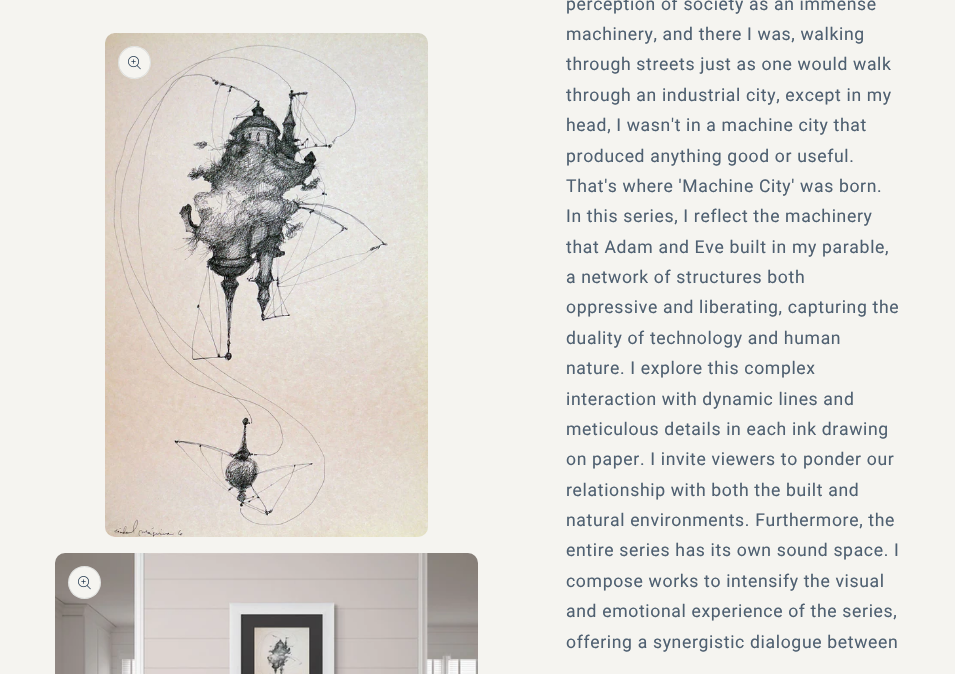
#include "include/core/SkBlurTypes.h"
#include "include/core/SkCanvas.h"
#include "include/core/SkData.h"
#include "include/core/SkFont.h"
#include "include/core/SkFontMgr.h"
#include "include/core/SkImage.h"
#include "include/core/SkMaskFilter.h"
#include "include/core/SkPaint.h"
#include "include/core/SkPathBuilder.h"
#include "include/core/SkTextBlob.h"
#include "include/effects/SkDashPathEffect.h"
#include "include/effects/SkGradientShader.h"
#include "include/utils/SkParsePath.h"

extern sk_sp<SkFontMgr> fontMgr;

void draw(SkCanvas* canvas) {
  SkPaint p;
  p.setAntiAlias(true);
  auto spacedText = [&](const char* s, float x, float y, const SkFont& font, const SkPaint& ink, float letter, float word) {
    std::vector<SkGlyphID> glyphs(font.countText(s, strlen(s), SkTextEncoding::kUTF8));
    std::vector<float> xs(glyphs.size());
    font.textToGlyphs(s, strlen(s), SkTextEncoding::kUTF8, glyphs);
    font.getXPos(glyphs, xs, x);
    float extra = 0;
    for (size_t i = 0; i < glyphs.size(); i++) {
      xs[i] += extra;
      extra += letter + word * (glyphs[i] == font.unicharToGlyph(' '));
    }
    canvas->drawTextBlob(SkTextBlob::MakeFromPosHGlyphs(glyphs, xs, y, font), 0, 0, ink);
  };
  canvas->clear(SkColorSetRGB(245, 244, 240));
  canvas->drawImageRect(SkImages::DeferredFromEncodedData(SkData::MakeFromFileName("images/1.png")), SkRect::MakeLTRB(105, 33, 428, 537), SkSamplingOptions());
  p.setColor(SkColorSetRGB(245, 244, 240));
  canvas->drawCircle(134.5f, 62.5f, 16.5f, p);
  p.setStyle(SkPaint::kStroke_Style);
  p.setStrokeWidth(1);
  p.setColor(SkColorSetARGB(26, 23, 46, 70));
  canvas->drawCircle(134.5f, 62.5f, 16, p);
  canvas->drawImageRect(SkImages::DeferredFromEncodedData(SkData::MakeFromFileName("images/2.png")), SkRect::MakeLTRB(128, 56, 141, 70), SkSamplingOptions());
  canvas->drawImageRect(SkImages::DeferredFromEncodedData(SkData::MakeFromFileName("images/3.png")), SkRect::MakeLTRB(55, 553, 478, 674), SkSamplingOptions());
  p.setStyle(SkPaint::kFill_Style);
  p.setColor(SkColorSetRGB(245, 244, 240));
  canvas->drawCircle(84.5f, 582.5f, 16.5f, p);
  p.setStyle(SkPaint::kStroke_Style);
  p.setColor(SkColorSetARGB(26, 23, 46, 70));
  canvas->drawCircle(84.5f, 582.5f, 16, p);
  canvas->drawImageRect(SkImages::DeferredFromEncodedData(SkData::MakeFromFileName("images/2.png")), SkRect::MakeLTRB(78, 576, 91, 590), SkSamplingOptions());
  SkFont font1(fontMgr->matchFamilyStyle("Roboto", SkFontStyle::Normal()), 17.6f);
  font1.setSubpixel(true);
  p.setStyle(SkPaint::kFill_Style);
  p.setColor(SkColorSetRGB(79, 96, 113));
  spacedText("perception of society as an immense", 566, 10, font1, p, 0.65f, 0);
  spacedText("machinery, and there I was, walking", 566, 40, font1, p, 0.65f, 0);
  spacedText("through streets just as one would walk", 566, 70, font1, p, 0.65f, 0);
  spacedText("through an industrial city, except in my", 566, 101, font1, p, 0.65f, 0);
  spacedText("head, I wasn't in a machine city that", 566, 131, font1, p, 0.65f, 0);
  spacedText("produced anything good or useful.", 566, 162, font1, p, 0.65f, 0);
  spacedText("That's where 'Machine City' was born.", 566, 192, font1, p, 0.65f, 0);
  spacedText("In this series, I reflect the machinery", 566, 222, font1, p, 0.65f, 0);
  spacedText("that Adam and Eve built in my parable,", 566, 253, font1, p, 0.65f, 0);
  spacedText("a network of structures both", 566, 283, font1, p, 0.65f, 0);
  spacedText("oppressive and liberating, capturing the", 566, 313, font1, p, 0.65f, 0);
  spacedText("duality of technology and human", 566, 344, font1, p, 0.65f, 0);
  spacedText("nature. I explore this complex", 566, 374, font1, p, 0.65f, 0);
  spacedText("interaction with dynamic lines and", 566, 405, font1, p, 0.65f, 0);
  spacedText("meticulous details in each ink drawing", 566, 435, font1, p, 0.65f, 0);
  spacedText("on paper. I invite viewers to ponder our", 566, 465, font1, p, 0.65f, 0);
  spacedText("relationship with both the built and", 566, 496, font1, p, 0.65f, 0);
  spacedText("natural environments. Furthermore, the", 566, 526, font1, p, 0.65f, 0);
  spacedText("entire series has its own sound space. I", 566, 556, font1, p, 0.65f, 0);
  spacedText("compose works to intensify the visual", 566, 587, font1, p, 0.65f, 0);
  spacedText("and emotional experience of the series,", 566, 617, font1, p, 0.65f, 0);
  spacedText("offering a synergistic dialogue between", 566, 648, font1, p, 0.65f, 0);
}
